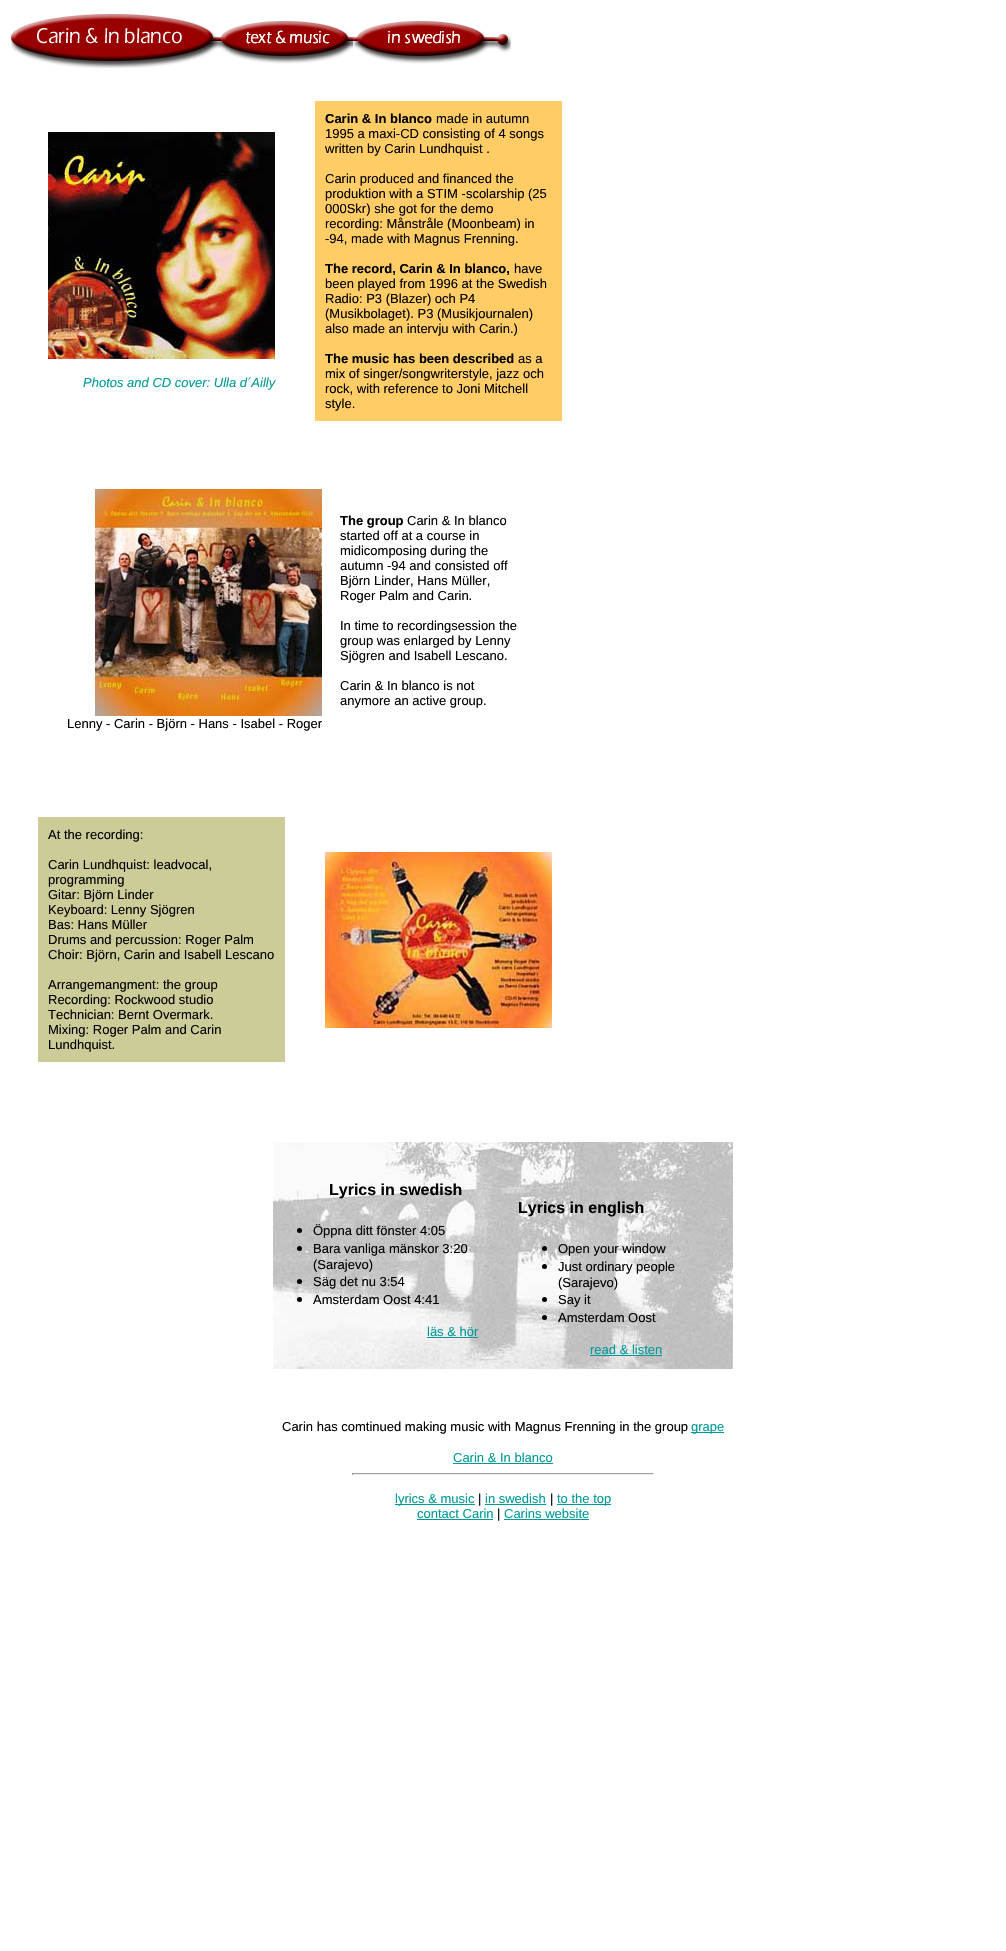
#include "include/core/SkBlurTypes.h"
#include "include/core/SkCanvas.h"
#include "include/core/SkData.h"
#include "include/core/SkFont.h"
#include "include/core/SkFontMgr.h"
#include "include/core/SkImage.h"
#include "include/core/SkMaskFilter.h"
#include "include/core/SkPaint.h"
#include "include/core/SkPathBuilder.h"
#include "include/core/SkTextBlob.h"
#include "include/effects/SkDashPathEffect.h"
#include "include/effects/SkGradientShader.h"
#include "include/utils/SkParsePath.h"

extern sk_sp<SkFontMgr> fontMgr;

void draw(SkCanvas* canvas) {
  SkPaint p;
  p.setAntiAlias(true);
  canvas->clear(SK_ColorWHITE);
  canvas->drawImageRect(SkImages::DeferredFromEncodedData(SkData::MakeFromFileName("images/1.png")), SkRect::MakeLTRB(11, 14, 218, 68), SkSamplingOptions());
  canvas->drawImageRect(SkImages::DeferredFromEncodedData(SkData::MakeFromFileName("images/2.png")), SkRect::MakeLTRB(218, 21, 353, 64), SkSamplingOptions());
  canvas->drawImageRect(SkImages::DeferredFromEncodedData(SkData::MakeFromFileName("images/3.png")), SkRect::MakeLTRB(353, 21, 511, 64), SkSamplingOptions());
  canvas->drawImageRect(SkImages::DeferredFromEncodedData(SkData::MakeFromFileName("images/4.png")), SkRect::MakeLTRB(48, 132, 275, 359), SkSamplingOptions());
  p.setColor(SkColorSetRGB(255, 204, 102));
  canvas->drawRect(SkRect::MakeLTRB(315, 101, 562, 421), p);
  canvas->drawImageRect(SkImages::DeferredFromEncodedData(SkData::MakeFromFileName("images/5.png")), SkRect::MakeLTRB(95, 489, 322, 716), SkSamplingOptions());
  p.setColor(SkColorSetRGB(204, 204, 153));
  canvas->drawRect(SkRect::MakeLTRB(38, 817, 285, 1062), p);
  canvas->drawImageRect(SkImages::DeferredFromEncodedData(SkData::MakeFromFileName("images/6.png")), SkRect::MakeLTRB(325, 852, 552, 1028), SkSamplingOptions());
  canvas->drawImageRect(SkImages::DeferredFromEncodedData(SkData::MakeFromFileName("images/7.png")), SkRect::MakeLTRB(273, 1142, 733, 1369), SkSamplingOptions());
  p.setColor(SK_ColorBLACK);
  canvas->drawCircle(299.5f, 1230.5f, 2.5f, p);
  canvas->drawCircle(299.5f, 1248.5f, 2.5f, p);
  canvas->drawCircle(299.5f, 1281.5f, 2.5f, p);
  canvas->drawCircle(299.5f, 1299.5f, 2.5f, p);
  p.setColor(SkColorSetRGB(0, 153, 153));
  canvas->drawRect(SkRect::MakeLTRB(427, 1337, 478, 1338), p);
  p.setColor(SK_ColorBLACK);
  canvas->drawCircle(544.5f, 1248.5f, 2.5f, p);
  canvas->drawCircle(544.5f, 1266.5f, 2.5f, p);
  canvas->drawCircle(544.5f, 1299.5f, 2.5f, p);
  canvas->drawCircle(544.5f, 1317.5f, 2.5f, p);
  p.setColor(SkColorSetRGB(0, 153, 153));
  canvas->drawRect(SkRect::MakeLTRB(590, 1355, 662, 1356), p);
  canvas->drawRect(SkRect::MakeLTRB(691, 1432, 724, 1433), p);
  canvas->drawRect(SkRect::MakeLTRB(453, 1463, 553, 1464), p);
  p.setColor(SkColorSetRGB(159, 159, 159));
  canvas->drawRect(SkRect::MakeLTRB(352, 1473, 654, 1474), p);
  p.setColor(SkColorSetRGB(238, 238, 238));
  canvas->drawRect(SkRect::MakeLTRB(653, 1473, 654, 1475), p);
  canvas->drawRect(SkRect::MakeLTRB(352, 1474, 654, 1475), p);
  p.setColor(SkColorSetRGB(159, 159, 159));
  canvas->drawRect(SkRect::MakeLTRB(352, 1473, 353, 1475), p);
  p.setColor(SkColorSetRGB(0, 153, 153));
  canvas->drawRect(SkRect::MakeLTRB(395, 1504, 475, 1505), p);
  canvas->drawRect(SkRect::MakeLTRB(485, 1504, 546, 1505), p);
  canvas->drawRect(SkRect::MakeLTRB(557, 1504, 611, 1505), p);
  canvas->drawRect(SkRect::MakeLTRB(417, 1519, 493, 1520), p);
  canvas->drawRect(SkRect::MakeLTRB(504, 1519, 589, 1520), p);
  SkFont font1(fontMgr->matchFamilyStyle("Liberation Sans", SkFontStyle::Italic()), 13);
  font1.setSubpixel(true);
  canvas->drawString("Photos and CD cover: Ulla d´Ailly", 83, 387, font1, p);
  SkFont font2(fontMgr->matchFamilyStyle("Liberation Sans", SkFontStyle::Bold()), 13);
  font2.setSubpixel(true);
  p.setColor(SK_ColorBLACK);
  canvas->drawString("Carin & In blanco", 325, 123, font2, p);
  SkFont font3(fontMgr->matchFamilyStyle("Liberation Sans", SkFontStyle::Normal()), 13);
  font3.setSubpixel(true);
  canvas->drawString("made in autumn", 436, 123, font3, p);
  canvas->drawString("1995 a maxi-CD consisting of 4 songs", 325, 138, font3, p);
  canvas->drawString("written by Carin Lundhquist .", 325, 153, font3, p);
  canvas->drawString("Carin produced and financed the", 325, 183, font3, p);
  canvas->drawString("produktion with a STIM -scolarship (25", 325, 198, font3, p);
  canvas->drawString("000Skr) she got for the demo", 325, 213, font3, p);
  canvas->drawString("recording: Månstråle (Moonbeam) in", 325, 228, font3, p);
  canvas->drawString("-94, made with Magnus Frenning.", 325, 243, font3, p);
  canvas->drawString("The record, Carin & In blanco,", 325, 273, font2, p);
  canvas->drawString("have", 514, 273, font3, p);
  canvas->drawString("been played from 1996 at the Swedish", 325, 288, font3, p);
  canvas->drawString("Radio: P3 (Blazer) och P4", 325, 303, font3, p);
  canvas->drawString("(Musikbolaget). P3 (Musikjournalen)", 325, 318, font3, p);
  canvas->drawString("also made an intervju with Carin.)", 325, 333, font3, p);
  canvas->drawString("The music has been described", 325, 363, font2, p);
  canvas->drawString("as a", 518, 363, font3, p);
  canvas->drawString("mix of singer/songwriterstyle, jazz och", 325, 378, font3, p);
  canvas->drawString("rock, with reference to Joni Mitchell", 325, 393, font3, p);
  canvas->drawString("style.", 325, 408, font3, p);
  canvas->drawString("The group", 340, 525, font2, p);
  canvas->drawString("Carin & In blanco", 407, 525, font3, p);
  canvas->drawString("started off at a course in", 340, 540, font3, p);
  canvas->drawString("midicomposing during the", 340, 555, font3, p);
  canvas->drawString("autumn -94 and consisted off", 340, 570, font3, p);
  canvas->drawString("Björn Linder, Hans Müller,", 340, 585, font3, p);
  canvas->drawString("Roger Palm and Carin.", 340, 600, font3, p);
  canvas->drawString("In time to recordingsession the", 340, 630, font3, p);
  canvas->drawString("group was enlarged by Lenny", 340, 645, font3, p);
  canvas->drawString("Sjögren and Isabell Lescano.", 340, 660, font3, p);
  canvas->drawString("Carin & In blanco is not", 340, 690, font3, p);
  canvas->drawString("anymore an active group.", 340, 705, font3, p);
  canvas->drawString("Lenny - Carin - Björn - Hans - Isabel - Roger", 67, 728, font3, p);
  canvas->drawString("At the recording:", 48, 839, font3, p);
  canvas->drawString("Carin Lundhquist: leadvocal,", 48, 869, font3, p);
  canvas->drawString("programming", 48, 884, font3, p);
  canvas->drawString("Gitar: Björn Linder", 48, 899, font3, p);
  canvas->drawString("Keyboard: Lenny Sjögren", 48, 914, font3, p);
  canvas->drawString("Bas: Hans Müller", 48, 929, font3, p);
  canvas->drawString("Drums and percussion: Roger Palm", 48, 944, font3, p);
  canvas->drawString("Choir: Björn, Carin and Isabell Lescano", 48, 959, font3, p);
  canvas->drawString("Arrangemangment: the group", 48, 989, font3, p);
  canvas->drawString("Recording: Rockwood studio", 48, 1004, font3, p);
  canvas->drawString("Technician: Bernt Overmark.", 48, 1019, font3, p);
  canvas->drawString("Mixing: Roger Palm and Carin", 48, 1034, font3, p);
  canvas->drawString("Lundhquist.", 48, 1049, font3, p);
  SkFont font4(fontMgr->matchFamilyStyle("Liberation Sans", SkFontStyle::Bold()), 16);
  font4.setSubpixel(true);
  canvas->drawString("Lyrics in swedish", 329, 1195, font4, p);
  canvas->drawString("Öppna ditt fönster 4:05", 313, 1235, font3, p);
  canvas->drawString("Bara vanliga mänskor 3:20", 313, 1253, font3, p);
  canvas->drawString("(Sarajevo)", 313, 1269, font3, p);
  canvas->drawString("Säg det nu 3:54", 313, 1286, font3, p);
  canvas->drawString("Amsterdam Oost 4:41", 313, 1304, font3, p);
  p.setColor(SkColorSetRGB(0, 153, 153));
  canvas->drawString("läs & hör", 427, 1336, font3, p);
  p.setColor(SK_ColorBLACK);
  canvas->drawString("Lyrics in english", 518, 1213, font4, p);
  canvas->drawString("Open your window", 558, 1253, font3, p);
  canvas->drawString("Just ordinary people", 558, 1271, font3, p);
  canvas->drawString("(Sarajevo)", 558, 1287, font3, p);
  canvas->drawString("Say it", 558, 1304, font3, p);
  canvas->drawString("Amsterdam Oost", 558, 1322, font3, p);
  p.setColor(SkColorSetRGB(0, 153, 153));
  canvas->drawString("read & listen", 590, 1354, font3, p);
  p.setColor(SK_ColorBLACK);
  canvas->drawString("Carin has comtinued making music with Magnus Frenning in the group", 282, 1431, font3, p);
  p.setColor(SkColorSetRGB(0, 153, 153));
  canvas->drawString("grape", 691, 1431, font3, p);
  canvas->drawString("Carin & In blanco", 453, 1462, font3, p);
  canvas->drawString("lyrics & music", 395, 1503, font3, p);
  p.setColor(SK_ColorBLACK);
  canvas->drawString("|", 478, 1503, font3, p);
  p.setColor(SkColorSetRGB(0, 153, 153));
  canvas->drawString("in swedish", 485, 1503, font3, p);
  p.setColor(SK_ColorBLACK);
  canvas->drawString("|", 550, 1503, font3, p);
  p.setColor(SkColorSetRGB(0, 153, 153));
  canvas->drawString("to the top", 557, 1503, font3, p);
  canvas->drawString("contact Carin", 417, 1518, font3, p);
  p.setColor(SK_ColorBLACK);
  canvas->drawString("|", 497, 1518, font3, p);
  p.setColor(SkColorSetRGB(0, 153, 153));
  canvas->drawString("Carins website", 504, 1518, font3, p);
}
